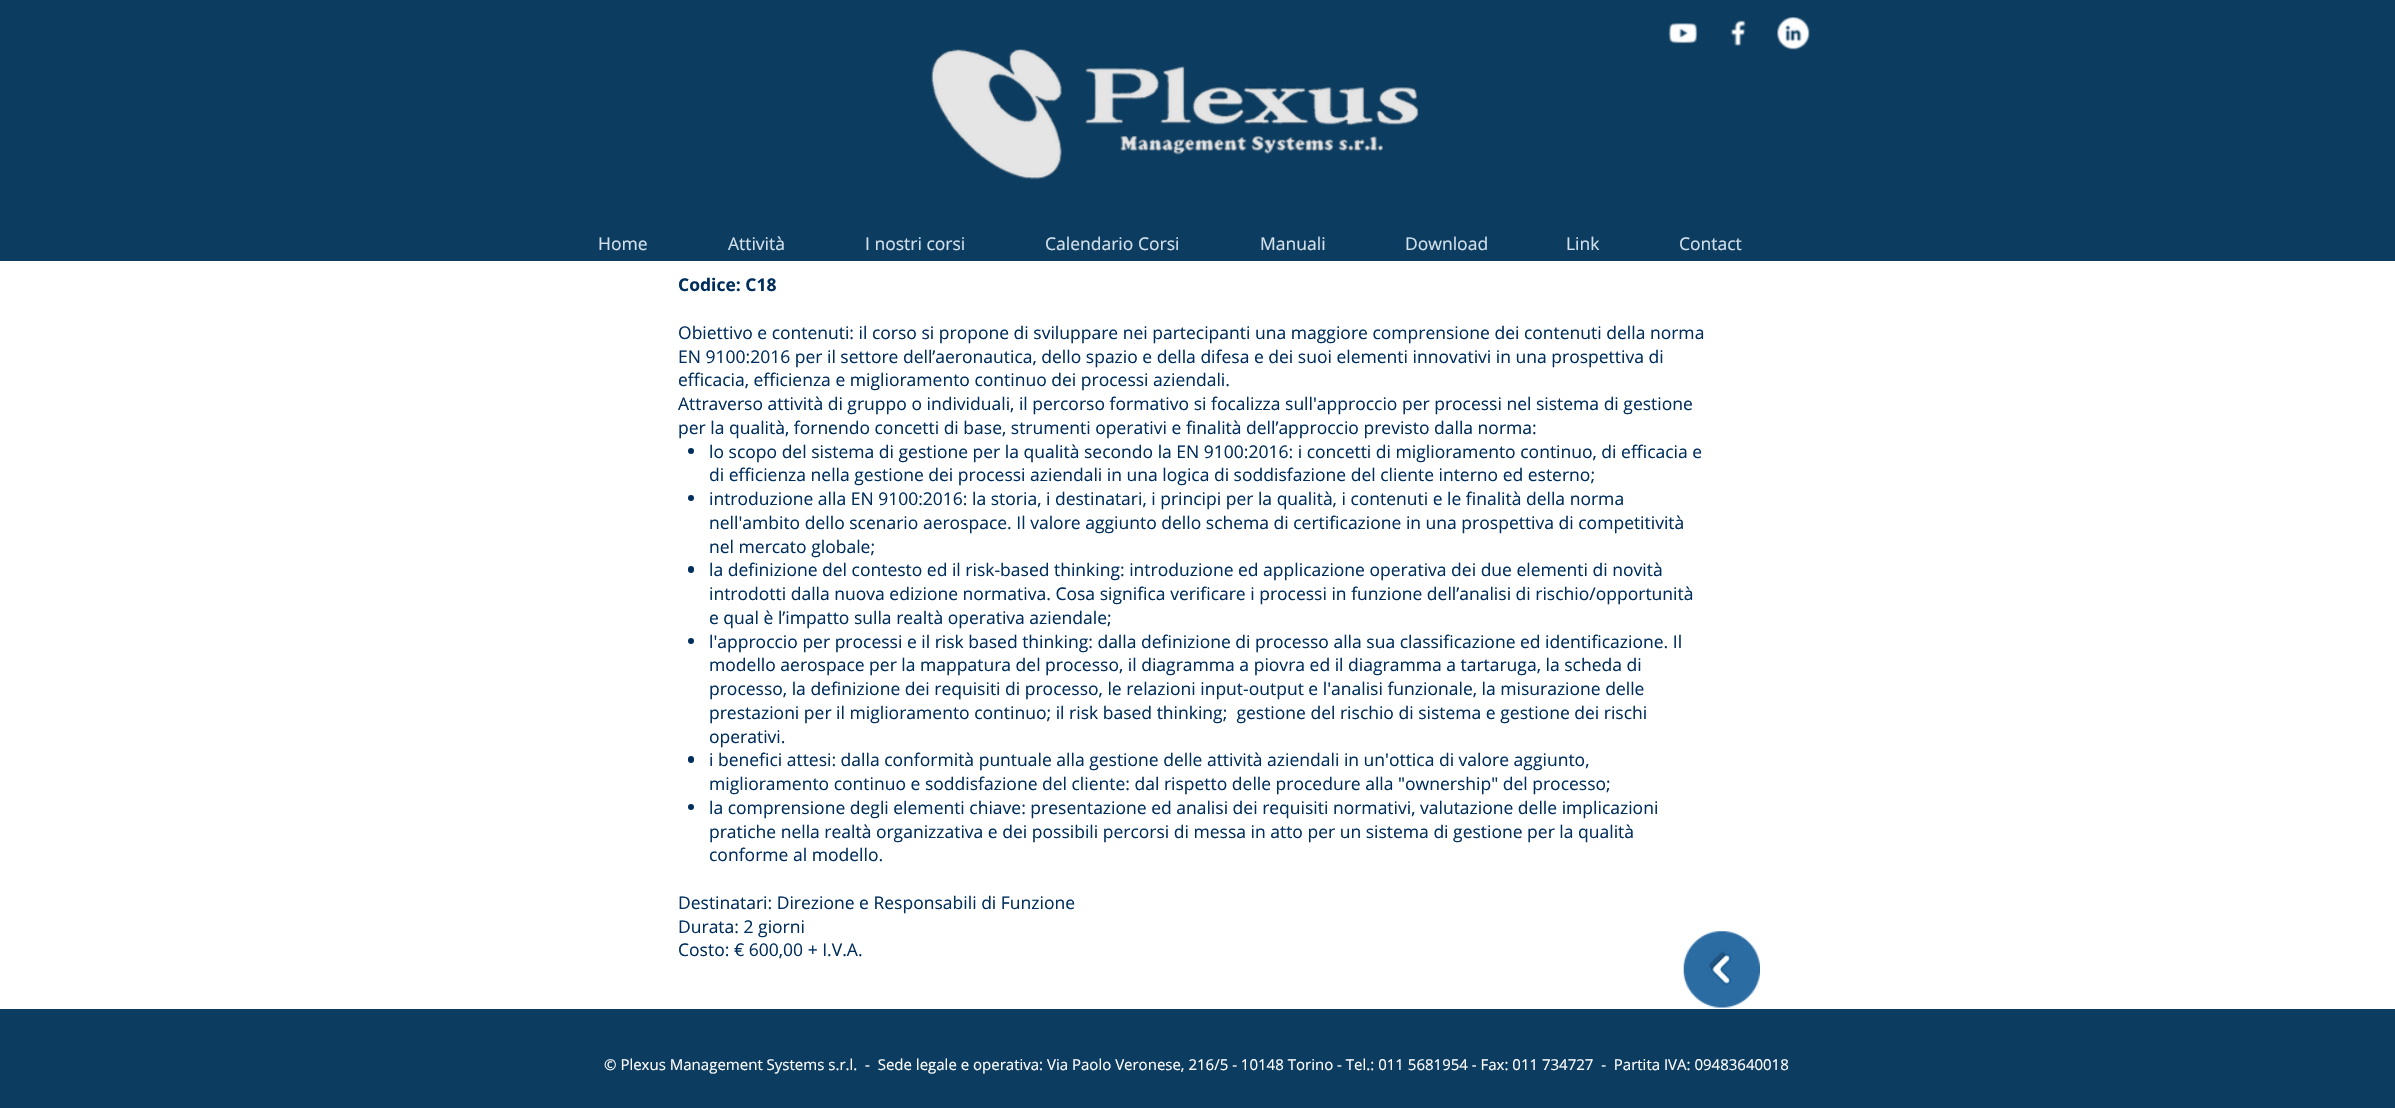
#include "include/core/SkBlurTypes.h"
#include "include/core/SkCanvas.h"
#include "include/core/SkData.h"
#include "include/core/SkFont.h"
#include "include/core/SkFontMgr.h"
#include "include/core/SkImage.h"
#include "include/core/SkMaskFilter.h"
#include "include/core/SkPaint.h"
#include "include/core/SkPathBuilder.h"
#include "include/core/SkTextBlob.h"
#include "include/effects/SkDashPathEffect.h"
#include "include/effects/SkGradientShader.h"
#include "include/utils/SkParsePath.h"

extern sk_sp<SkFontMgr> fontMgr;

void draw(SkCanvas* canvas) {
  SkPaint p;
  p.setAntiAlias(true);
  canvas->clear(SK_ColorWHITE);
  p.setColor(SkColorSetRGB(12, 60, 96));
  canvas->drawRect(SkRect::MakeLTRB(0, 0, 2395, 261), p);
  canvas->drawImageRect(SkImages::DeferredFromEncodedData(SkData::MakeFromFileName("images/1.png")), SkRect::MakeLTRB(1668, 23, 1698, 44), SkSamplingOptions());
  canvas->drawImageRect(SkImages::DeferredFromEncodedData(SkData::MakeFromFileName("images/2.png")), SkRect::MakeLTRB(1730, 20, 1746, 46), SkSamplingOptions());
  canvas->drawImageRect(SkImages::DeferredFromEncodedData(SkData::MakeFromFileName("images/3.png")), SkRect::MakeLTRB(1777, 17, 1810, 50), SkSamplingOptions());
  canvas->drawImageRect(SkImages::DeferredFromEncodedData(SkData::MakeFromFileName("images/4.png")), SkRect::MakeLTRB(931, 48, 1419, 180), SkSamplingOptions());
  p.setColor(SkColorSetRGB(0, 46, 93));
  canvas->drawCircle(691, 451, 3, p);
  canvas->drawCircle(691, 498, 3, p);
  canvas->drawRoundRect(SkRect::MakeLTRB(688, 566, 694, 573), 3, 3, p);
  canvas->drawCircle(691, 641, 3, p);
  canvas->drawRoundRect(SkRect::MakeLTRB(688, 756, 694, 763), 3, 3, p);
  canvas->drawCircle(691, 807, 3, p);
  canvas->drawImageRect(SkImages::DeferredFromEncodedData(SkData::MakeFromFileName("images/5.png")), SkRect::MakeLTRB(1683, 931, 1760, 1008), SkSamplingOptions());
  p.setColor(SkColorSetRGB(12, 60, 96));
  canvas->drawRect(SkRect::MakeLTRB(0, 1009, 2395, 1108), p);
  SkFont font1(fontMgr->matchFamilyStyle("Open Sans", SkFontStyle::Normal()), 17.5f);
  font1.setSubpixel(true);
  p.setColor(SkColorSetRGB(209, 224, 235));
  canvas->drawString("Home", 598, 250, font1, p);
  canvas->drawString("Attività", 728, 250, font1, p);
  canvas->drawString("I nostri corsi", 865, 250, font1, p);
  canvas->drawString("Calendario Corsi", 1045, 250, font1, p);
  canvas->drawString("Manuali", 1260, 250, font1, p);
  canvas->drawString("Download", 1405, 250, font1, p);
  canvas->drawString("Link", 1566, 250, font1, p);
  canvas->drawString("Contact", 1679, 250, font1, p);
  SkFont font2(fontMgr->matchFamilyStyle("Open Sans", SkFontStyle::Bold()), 17.5f);
  font2.setSubpixel(true);
  p.setColor(SkColorSetRGB(0, 46, 93));
  canvas->drawString("Codice: C18", 678, 291, font2, p);
  canvas->drawString("Obiettivo e contenuti: il corso si propone di sviluppare nei partecipanti una maggiore comprensione dei contenuti della norma", 678, 339, font1, p);
  canvas->drawString("EN 9100:2016 per il settore dell’aeronautica, dello spazio e della difesa e dei suoi elementi innovativi in una prospettiva di", 678, 363, font1, p);
  canvas->drawString("efficacia, efficienza e miglioramento continuo dei processi aziendali.", 678, 386, font1, p);
  canvas->drawString("Attraverso attività di gruppo o individuali, il percorso formativo si focalizza sull'approccio per processi nel sistema di gestione", 678, 410, font1, p);
  canvas->drawString("per la qualità, fornendo concetti di base, strumenti operativi e finalità dell’approccio previsto dalla norma:", 678, 434, font1, p);
  canvas->drawString("lo scopo del sistema di gestione per la qualità secondo la EN 9100:2016: i concetti di miglioramento continuo, di efficacia e", 709, 458, font1, p);
  canvas->drawString("di efficienza nella gestione dei processi aziendali in una logica di soddisfazione del cliente interno ed esterno;", 709, 481, font1, p);
  canvas->drawString("introduzione alla EN 9100:2016: la storia, i destinatari, i principi per la qualità, i contenuti e le finalità della norma", 709, 505, font1, p);
  canvas->drawString("nell'ambito dello scenario aerospace. Il valore aggiunto dello schema di certificazione in una prospettiva di competitività", 709, 529, font1, p);
  canvas->drawString("nel mercato globale;", 709, 553, font1, p);
  canvas->drawString("la definizione del contesto ed il risk-based thinking: introduzione ed applicazione operativa dei due elementi di novità", 709, 576, font1, p);
  canvas->drawString("introdotti dalla nuova edizione normativa. Cosa significa verificare i processi in funzione dell’analisi di rischio/opportunità", 709, 600, font1, p);
  canvas->drawString("e qual è l’impatto sulla realtà operativa aziendale;", 709, 624, font1, p);
  canvas->drawString("l'approccio per processi e il risk based thinking: dalla definizione di processo alla sua classificazione ed identificazione. Il", 709, 648, font1, p);
  canvas->drawString("modello aerospace per la mappatura del processo, il diagramma a piovra ed il diagramma a tartaruga, la scheda di", 709, 671, font1, p);
  canvas->drawString("processo, la definizione dei requisiti di processo, le relazioni input-output e l'analisi funzionale, la misurazione delle", 709, 695, font1, p);
  canvas->drawString("prestazioni per il miglioramento continuo; il risk based thinking;  gestione del rischio di sistema e gestione dei rischi", 709, 719, font1, p);
  canvas->drawString("operativi.", 709, 743, font1, p);
  canvas->drawString("i benefici attesi: dalla conformità puntuale alla gestione delle attività aziendali in un'ottica di valore aggiunto,", 709, 766, font1, p);
  canvas->drawString("miglioramento continuo e soddisfazione del cliente: dal rispetto delle procedure alla \"ownership\" del processo;", 709, 790, font1, p);
  canvas->drawString("la comprensione degli elementi chiave: presentazione ed analisi dei requisiti normativi, valutazione delle implicazioni", 709, 814, font1, p);
  canvas->drawString("pratiche nella realtà organizzativa e dei possibili percorsi di messa in atto per un sistema di gestione per la qualità", 709, 838, font1, p);
  canvas->drawString("conforme al modello.", 709, 861, font1, p);
  canvas->drawString("Destinatari: Direzione e Responsabili di Funzione", 678, 909, font1, p);
  canvas->drawString("Durata: 2 giorni", 678, 933, font1, p);
  canvas->drawString("Costo: € 600,00 + I.V.A.", 678, 956, font1, p);
  SkFont font3(fontMgr->matchFamilyStyle("Open Sans", SkFontStyle::Normal()), 15);
  font3.setSubpixel(true);
  p.setColor(SK_ColorWHITE);
  canvas->drawString("© Plexus Management Systems s.r.l.  -  Sede legale e operativa: Via Paolo Veronese, 216/5 - 10148 Torino - Tel.: 011 5681954 - Fax: 011 734727  -  Partita IVA: 09483640018", 604, 1070, font3, p);
}
